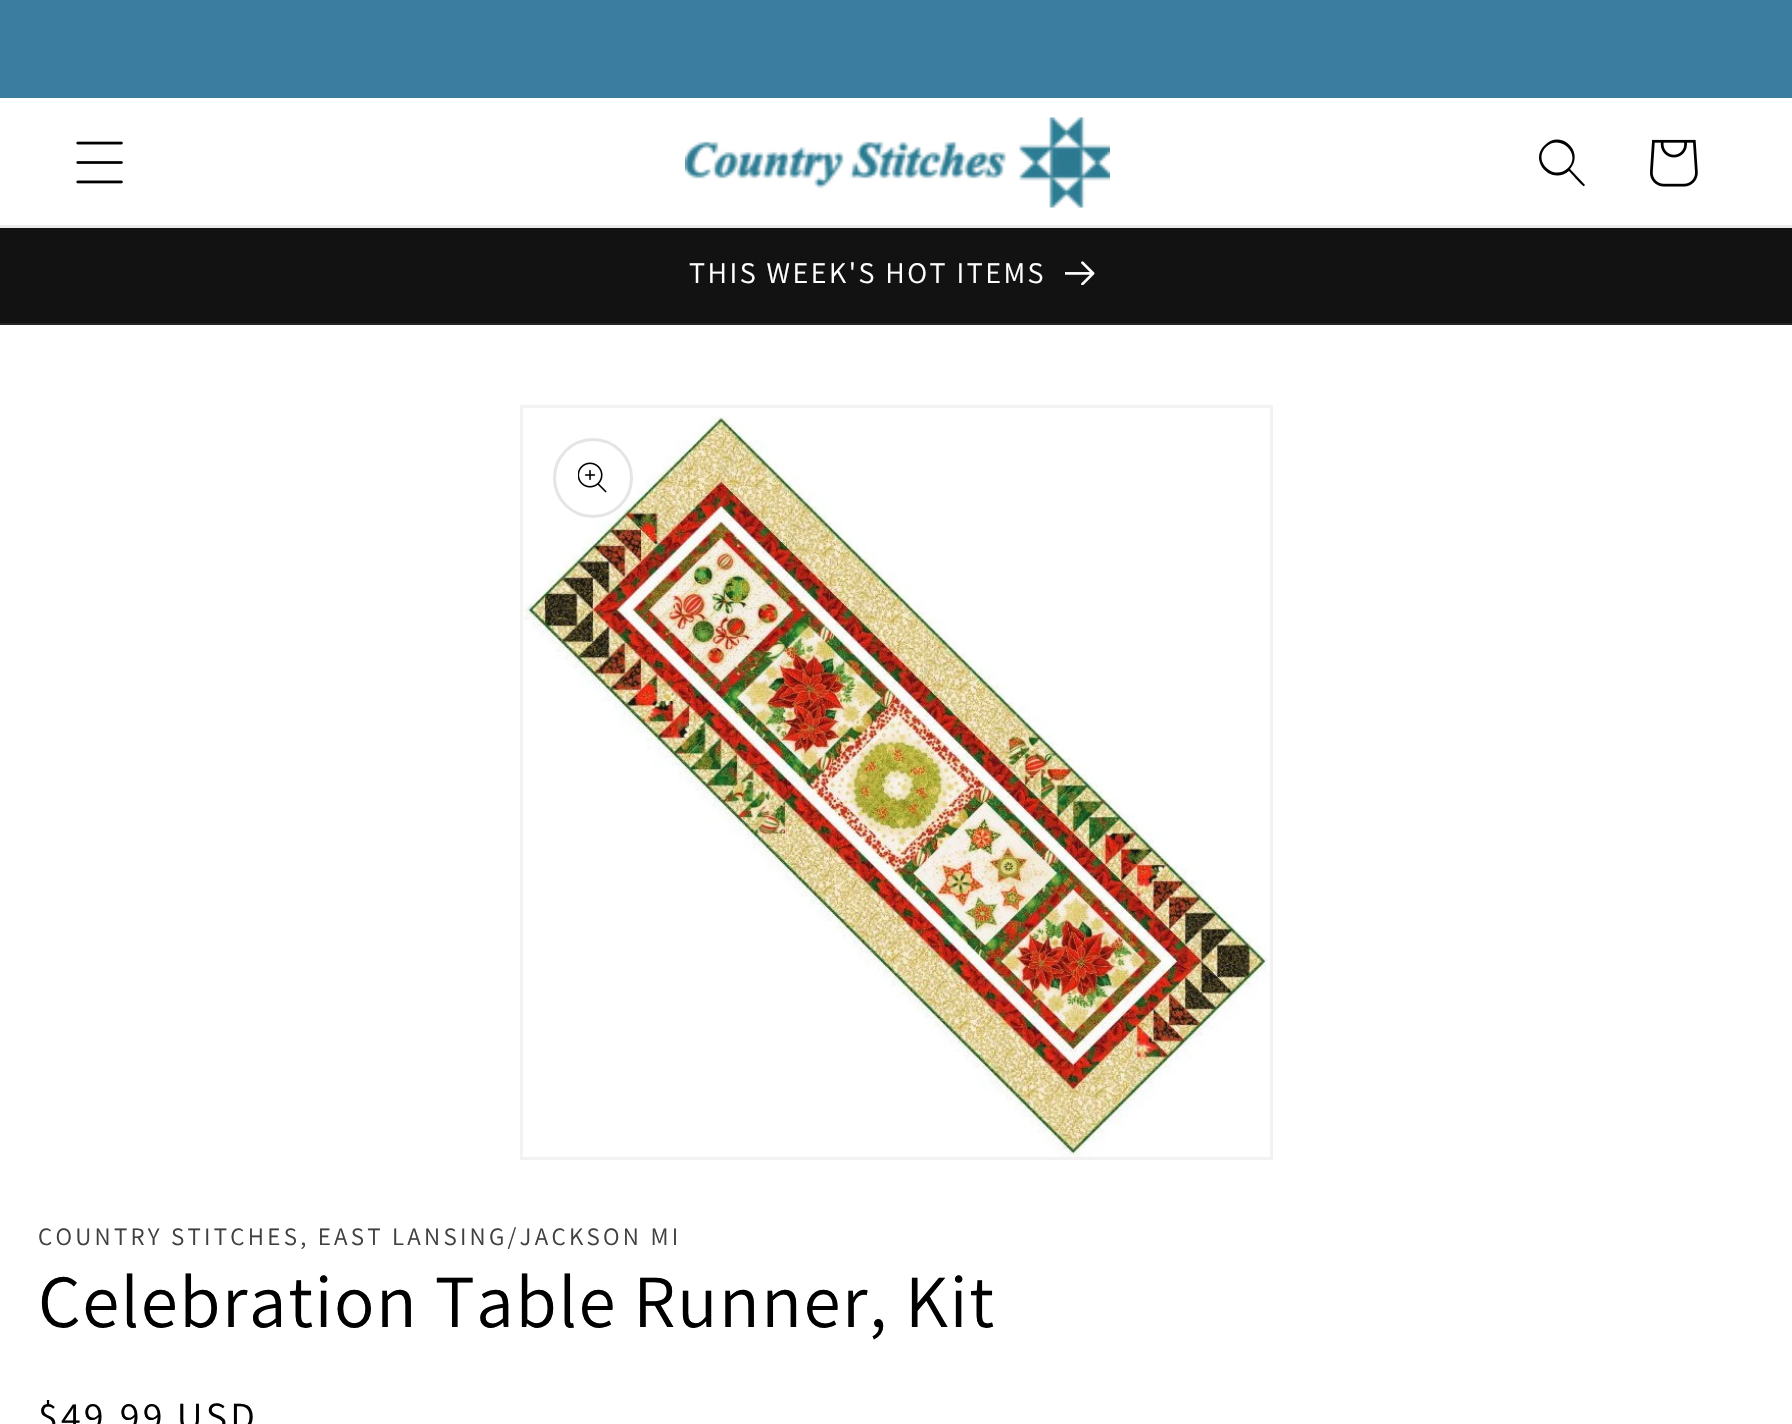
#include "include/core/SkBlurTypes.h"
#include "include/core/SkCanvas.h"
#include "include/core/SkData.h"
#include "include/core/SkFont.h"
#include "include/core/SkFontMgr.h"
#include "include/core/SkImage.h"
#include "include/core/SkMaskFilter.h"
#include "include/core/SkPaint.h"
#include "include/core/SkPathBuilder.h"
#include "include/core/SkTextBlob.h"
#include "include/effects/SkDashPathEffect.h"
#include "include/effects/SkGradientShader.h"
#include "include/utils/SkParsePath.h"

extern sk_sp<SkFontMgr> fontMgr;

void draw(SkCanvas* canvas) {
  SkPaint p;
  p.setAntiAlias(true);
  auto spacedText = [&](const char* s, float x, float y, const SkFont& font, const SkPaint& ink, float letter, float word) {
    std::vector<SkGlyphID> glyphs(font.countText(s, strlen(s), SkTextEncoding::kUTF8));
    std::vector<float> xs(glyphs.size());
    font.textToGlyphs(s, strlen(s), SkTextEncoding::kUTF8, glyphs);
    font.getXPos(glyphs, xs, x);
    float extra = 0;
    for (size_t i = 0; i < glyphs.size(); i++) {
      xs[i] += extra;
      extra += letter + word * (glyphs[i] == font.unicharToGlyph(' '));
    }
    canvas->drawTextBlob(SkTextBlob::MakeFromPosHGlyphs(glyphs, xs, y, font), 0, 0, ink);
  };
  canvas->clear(SK_ColorWHITE);
  p.setColor(SkColorSetRGB(59, 125, 160));
  canvas->drawRect(SkRect::MakeLTRB(0, 0, 1792, 98), p);
  p.setColor(SkColorSetRGB(235, 235, 235));
  canvas->drawRect(SkRect::MakeLTRB(0, 225, 1792, 228), p);
  canvas->drawImageRect(SkImages::DeferredFromEncodedData(SkData::MakeFromFileName("images/1.png")), SkRect::MakeLTRB(76, 141, 123, 184), SkSamplingOptions());
  canvas->drawImageRect(SkImages::DeferredFromEncodedData(SkData::MakeFromFileName("images/2.png")), SkRect::MakeLTRB(685, 117, 1110, 208), SkSamplingOptions());
  p.setColor(SK_ColorBLACK);
  canvas->drawPath(SkPathBuilder(SkPathFillType::kEvenOdd).moveTo(1568, 168).cubicTo(1554, 182, 1532, 161, 1546, 147).cubicTo(1560, 133, 1582, 154, 1568, 168).close().moveTo(1569, 171).cubicTo(1551, 186, 1528, 160, 1545, 145).cubicTo(1561, 129, 1585, 152, 1570, 169).lineTo(1585, 185).lineTo(1584, 186).cubicTo(1583, 187, 1571, 173, 1569, 171).close().detach(), p);
  canvas->drawImageRect(SkImages::DeferredFromEncodedData(SkData::MakeFromFileName("images/3.png")), SkRect::MakeLTRB(1650, 139, 1698, 187), SkSamplingOptions());
  p.setColor(SkColorSetRGB(18, 18, 18));
  canvas->drawRect(SkRect::MakeLTRB(0, 228, 1792, 323), p);
  p.setColor(SkColorSetRGB(37, 37, 37));
  canvas->drawRect(SkRect::MakeLTRB(0, 323, 1792, 325), p);
  canvas->drawImageRect(SkImages::DeferredFromEncodedData(SkData::MakeFromFileName("images/4.png")), SkRect::MakeLTRB(1065, 261, 1095, 285), SkSamplingOptions());
  p.setStyle(SkPaint::kStroke_Style);
  p.setStrokeWidth(3);
  p.setColor(SkColorSetRGB(242, 242, 242));
  canvas->drawRect(SkRect::MakeLTRB(521.5f, 406.5f, 1271.5f, 1158.5f), p);
  canvas->drawImageRect(SkImages::DeferredFromEncodedData(SkData::MakeFromFileName("images/5.png")), SkRect::MakeLTRB(523, 415, 1270, 1157), SkSamplingOptions());
  p.setStyle(SkPaint::kFill_Style);
  p.setColor(SK_ColorWHITE);
  canvas->drawCircle(593, 478, 38.5f, p);
  p.setStyle(SkPaint::kStroke_Style);
  p.setColor(SkColorSetRGB(229, 229, 229));
  canvas->drawCircle(593, 478, 38.5f, p);
  canvas->drawImageRect(SkImages::DeferredFromEncodedData(SkData::MakeFromFileName("images/6.png")), SkRect::MakeLTRB(578, 462, 607, 493), SkSamplingOptions());
  SkFont font1(fontMgr->matchFamilyStyle("Assistant", SkFontStyle::Normal()), 30);
  font1.setSubpixel(true);
  p.setStyle(SkPaint::kFill_Style);
  p.setColor(SK_ColorWHITE);
  spacedText("THIS WEEK'S HOT ITEMS", 689, 283, font1, p, 2.5f, 0);
  SkFont font2(fontMgr->matchFamilyStyle("Assistant", SkFontStyle::Normal()), 25);
  font2.setSubpixel(true);
  p.setColor(SkColorSetRGB(64, 64, 64));
  spacedText("COUNTRY STITCHES, EAST LANSING/JACKSON MI", 38, 1245, font2, p, 3.25f, 0);
  SkFont font3(fontMgr->matchFamilyStyle("Assistant", SkFontStyle::Normal()), 75);
  font3.setSubpixel(true);
  p.setColor(SK_ColorBLACK);
  spacedText("Celebration Table Runner, Kit", 38, 1327, font3, p, 1.5f, 0);
  SkFont font4(fontMgr->matchFamilyStyle("Assistant", SkFontStyle::Normal()), 40);
  font4.setSubpixel(true);
  spacedText("$49.99 USD", 38, 1430, font4, p, 3.25f, 0);
}
